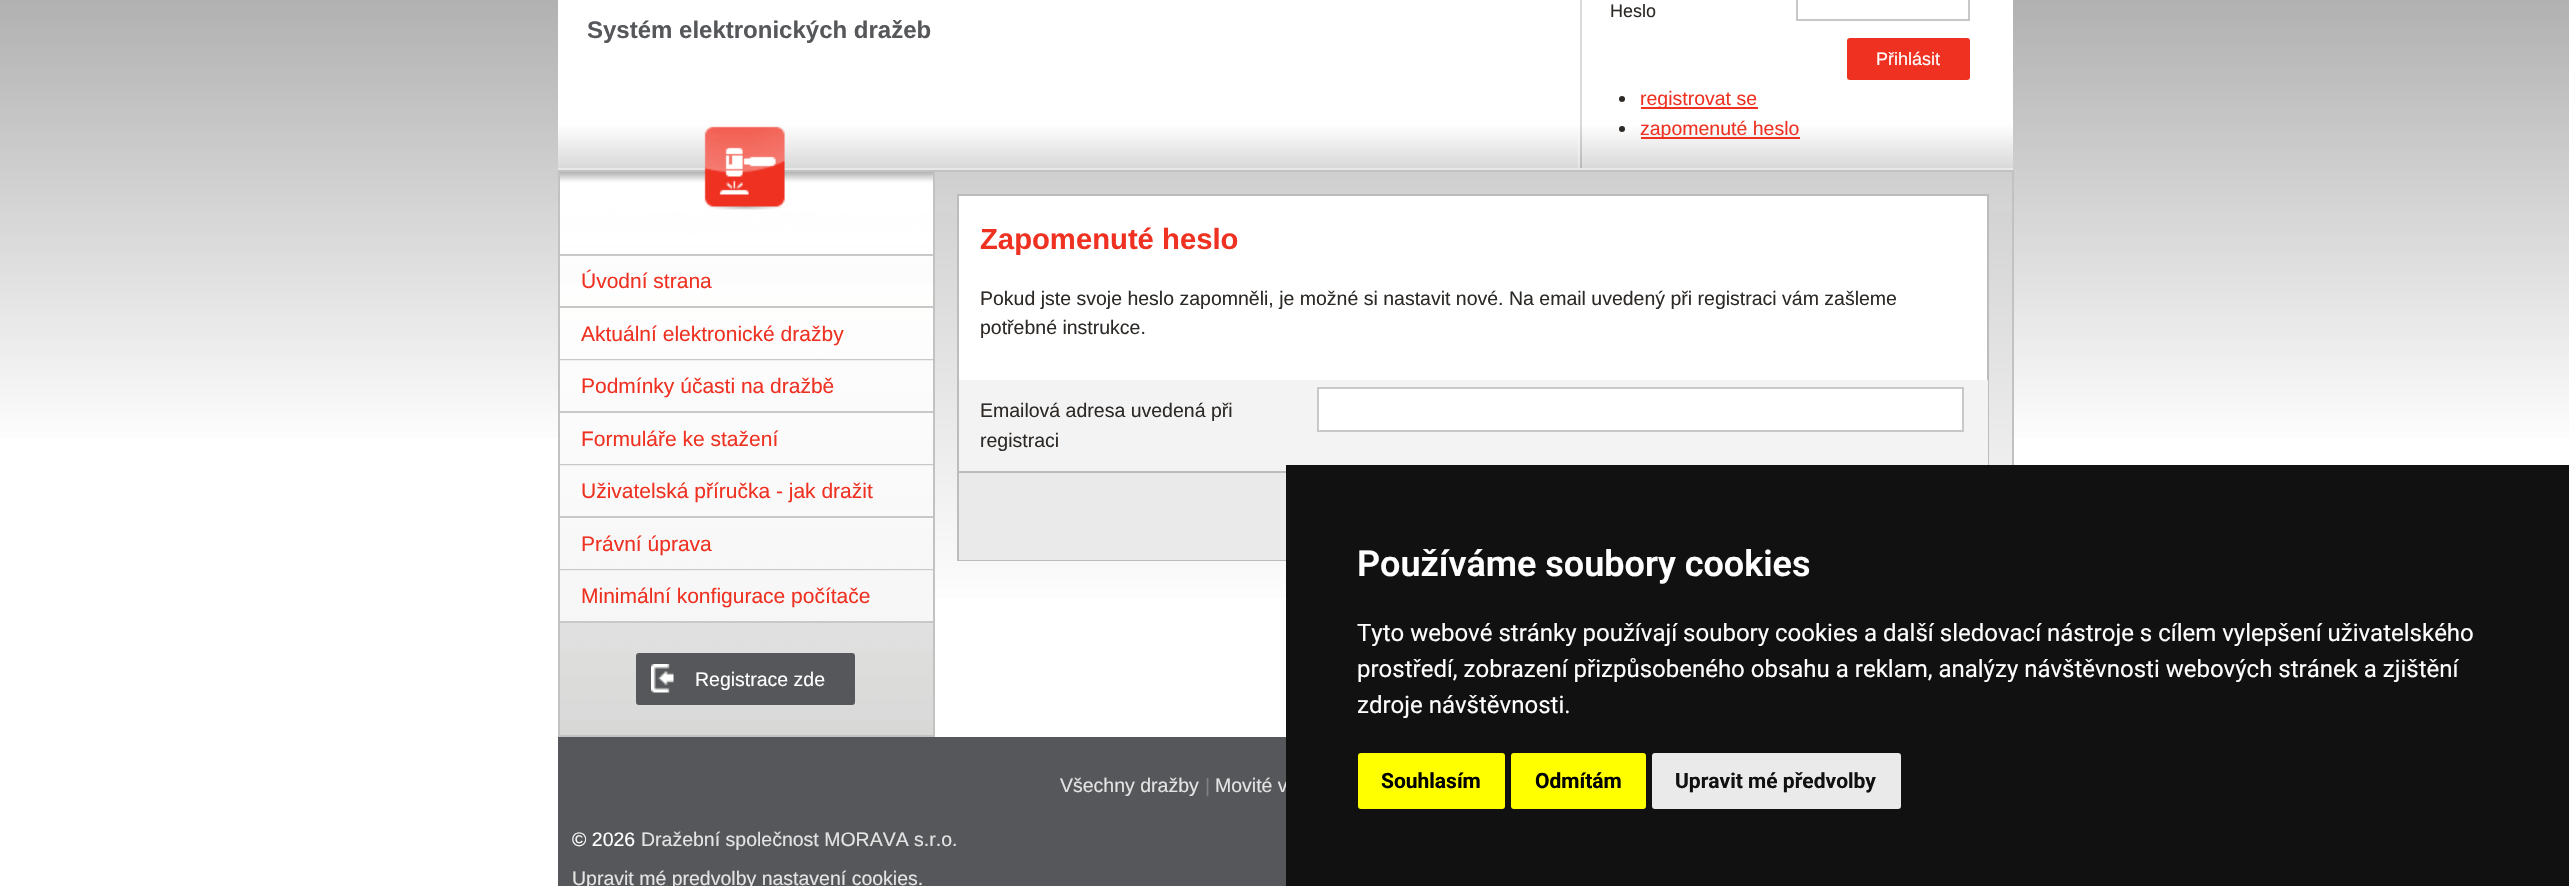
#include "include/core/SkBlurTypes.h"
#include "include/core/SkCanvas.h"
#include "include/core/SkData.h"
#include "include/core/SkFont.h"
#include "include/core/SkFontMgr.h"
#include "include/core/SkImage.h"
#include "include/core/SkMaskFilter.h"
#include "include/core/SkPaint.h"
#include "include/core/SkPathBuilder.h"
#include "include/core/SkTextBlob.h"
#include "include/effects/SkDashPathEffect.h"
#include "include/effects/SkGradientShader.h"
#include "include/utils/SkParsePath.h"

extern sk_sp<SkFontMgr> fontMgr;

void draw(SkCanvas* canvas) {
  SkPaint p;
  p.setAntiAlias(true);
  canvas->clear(SK_ColorWHITE);
  {
    const SkColor colors[] = {SkColorSetRGB(151, 151, 151), SK_ColorWHITE};
    const float stops[] = {0, 1};
    const SkPoint ends[] = {{1285, -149}, {1285, 452}};
    p.setShader(SkGradientShader::MakeLinear(ends, colors, stops, 2, SkTileMode::kClamp));
    p.setAlpha(255);
  }
  canvas->drawRect(SkRect::MakeLTRB(0, 0, 2569, 438), p);
  {
    const SkColor colors[] = {SkColorSetRGB(180, 180, 180), SK_ColorWHITE, SK_ColorWHITE, SkColorSetRGB(217, 217, 217)};
    const float stops[] = {0, 0.11f, 0.85f, 1};
    const SkPoint ends[] = {{1286, -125}, {1286, 168}};
    p.setShader(SkGradientShader::MakeLinear(ends, colors, stops, 4, SkTileMode::kClamp));
    p.setAlpha(255);
  }
  canvas->drawRect(SkRect::MakeLTRB(558, 0, 2013, 168), p);
  {
    const SkColor colors[] = {SkColorSetRGB(203, 203, 203), SK_ColorWHITE, SK_ColorWHITE, SkColorSetRGB(228, 228, 228)};
    const float stops[] = {0, 0.11f, 0.85f, 1};
    const SkPoint ends[] = {{1286, -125}, {1286, 168}};
    p.setShader(SkGradientShader::MakeLinear(ends, colors, stops, 4, SkTileMode::kClamp));
    p.setAlpha(255);
  }
  canvas->drawRect(SkRect::MakeLTRB(1578, 134, 1580, 168), p);
  {
    const SkColor colors[] = {SkColorSetRGB(153, 153, 153), SkColorSetRGB(217, 217, 217), SkColorSetRGB(217, 217, 217), SkColorSetRGB(184, 184, 184)};
    const float stops[] = {0, 0.11f, 0.85f, 1};
    const SkPoint ends[] = {{1286, -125}, {1286, 168}};
    p.setShader(SkGradientShader::MakeLinear(ends, colors, stops, 4, SkTileMode::kClamp));
    p.setAlpha(255);
  }
  canvas->drawRect(SkRect::MakeLTRB(1580, 0, 1582, 168), p);
  p.setShader(nullptr);
  p.setColor(SkColorSetRGB(232, 232, 232));
  canvas->drawRect(SkRect::MakeLTRB(558, 168, 2013, 170), p);
  p.setStyle(SkPaint::kStroke_Style);
  p.setStrokeWidth(2);
  p.setColor(SkColorSetRGB(200, 201, 199));
  canvas->drawRect(SkRect::MakeLTRB(1797, -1, 1969, 20), p);
  p.setStyle(SkPaint::kFill_Style);
  p.setColor(SkColorSetRGB(239, 49, 34));
  canvas->drawRoundRect(SkRect::MakeLTRB(1847, 38, 1970, 80), 3, 3, p);
  p.setColor(SkColorSetRGB(45, 41, 38));
  canvas->drawCircle(1622, 99, 3, p);
  p.setColor(SkColorSetRGB(239, 49, 34));
  canvas->drawRect(SkRect::MakeLTRB(1641, 107, 1758, 109), p);
  p.setColor(SkColorSetRGB(45, 41, 38));
  canvas->drawCircle(1622, 129, 3, p);
  p.setColor(SkColorSetRGB(239, 49, 34));
  canvas->drawRect(SkRect::MakeLTRB(1641, 137, 1800, 139), p);
  canvas->drawImageRect(SkImages::DeferredFromEncodedData(SkData::MakeFromFileName("images/1.png")), SkRect::MakeLTRB(560, 172, 933, 735), SkSamplingOptions());
  p.setStyle(SkPaint::kStroke_Style);
  p.setColor(SkColorSetRGB(194, 194, 194));
  canvas->drawRect(SkRect::MakeLTRB(559, 171, 934, 736), p);
  canvas->drawImageRect(SkImages::DeferredFromEncodedData(SkData::MakeFromFileName("images/2.png")), SkRect::MakeLTRB(704, 126, 785, 210), SkSamplingOptions());
  p.setStyle(SkPaint::kFill_Style);
  p.setColor(SkColorSetARGB(179, 255, 255, 255));
  canvas->drawRect(SkRect::MakeLTRB(560, 283, 933, 306), p);
  p.setColor(SkColorSetRGB(200, 201, 199));
  canvas->drawRect(SkRect::MakeLTRB(560, 254, 933, 256), p);
  canvas->drawRect(SkRect::MakeLTRB(560, 306, 933, 308), p);
  p.setColor(SkColorSetARGB(179, 255, 255, 255));
  canvas->drawRect(SkRect::MakeLTRB(560, 308, 933, 359), p);
  p.setColor(SkColorSetRGB(200, 201, 199));
  canvas->drawRect(SkRect::MakeLTRB(560, 359, 933, 361), p);
  p.setColor(SkColorSetARGB(179, 255, 255, 255));
  canvas->drawRect(SkRect::MakeLTRB(560, 360, 933, 411), p);
  p.setColor(SkColorSetRGB(200, 201, 199));
  canvas->drawRect(SkRect::MakeLTRB(560, 411, 933, 413), p);
  p.setColor(SkColorSetARGB(179, 255, 255, 255));
  canvas->drawRect(SkRect::MakeLTRB(560, 413, 933, 464), p);
  p.setColor(SkColorSetRGB(200, 201, 199));
  canvas->drawRect(SkRect::MakeLTRB(560, 464, 933, 466), p);
  p.setColor(SkColorSetARGB(179, 255, 255, 255));
  canvas->drawRect(SkRect::MakeLTRB(560, 465, 933, 516), p);
  p.setColor(SkColorSetRGB(200, 201, 199));
  canvas->drawRect(SkRect::MakeLTRB(560, 516, 933, 518), p);
  p.setColor(SkColorSetARGB(179, 255, 255, 255));
  canvas->drawRect(SkRect::MakeLTRB(560, 518, 933, 569), p);
  p.setColor(SkColorSetRGB(200, 201, 199));
  canvas->drawRect(SkRect::MakeLTRB(560, 569, 933, 571), p);
  p.setColor(SkColorSetARGB(179, 255, 255, 255));
  canvas->drawRect(SkRect::MakeLTRB(560, 570, 933, 621), p);
  p.setColor(SkColorSetRGB(200, 201, 199));
  canvas->drawRect(SkRect::MakeLTRB(560, 621, 933, 623), p);
  p.setColor(SkColorSetRGB(86, 87, 90));
  canvas->drawRoundRect(SkRect::MakeLTRB(636, 653, 855, 705), 3, 3, p);
  canvas->drawImageRect(SkImages::DeferredFromEncodedData(SkData::MakeFromFileName("images/3.png")), SkRect::MakeLTRB(651, 664, 674, 693), SkSamplingOptions());
  {
    const SkColor colors[] = {SkColorSetRGB(207, 207, 207), SK_ColorWHITE};
    const float stops[] = {0, 1};
    const SkPoint ends[] = {{1473, 171}, {1473, 621}};
    p.setShader(SkGradientShader::MakeLinear(ends, colors, stops, 2, SkTileMode::kClamp));
    p.setAlpha(255);
  }
  canvas->drawRect(SkRect::MakeLTRB(935, 212, 2012, 598), p);
  p.setShader(nullptr);
  p.setColor(SkColorSetRGB(194, 194, 194));
  canvas->drawRect(SkRect::MakeLTRB(935, 170, 2013, 172), p);
  canvas->drawRect(SkRect::MakeLTRB(2012, 170, 2014, 465), p);
  p.setColor(SK_ColorWHITE);
  canvas->drawRect(SkRect::MakeLTRB(959, 196, 1987, 380), p);
  p.setStyle(SkPaint::kStroke_Style);
  p.setColor(SkColorSetRGB(188, 188, 188));
  canvas->drawRect(SkRect::MakeLTRB(958, 195, 1988, 560), p);
  p.setStyle(SkPaint::kFill_Style);
  p.setColor(SkColorSetRGB(243, 243, 243));
  canvas->drawRect(SkRect::MakeLTRB(959, 380, 1988, 471), p);
  p.setColor(SK_ColorWHITE);
  canvas->drawRect(SkRect::MakeLTRB(1318, 388, 1963, 431), p);
  p.setStyle(SkPaint::kStroke_Style);
  p.setColor(SkColorSetRGB(200, 201, 199));
  canvas->drawRect(SkRect::MakeLTRB(1318, 388, 1963, 431), p);
  p.setStyle(SkPaint::kFill_Style);
  p.setColor(SkColorSetRGB(234, 234, 234));
  canvas->drawRect(SkRect::MakeLTRB(959, 473, 1286, 560), p);
  p.setColor(SkColorSetRGB(188, 188, 188));
  canvas->drawRect(SkRect::MakeLTRB(959, 471, 1286, 473), p);
  p.setColor(SkColorSetRGB(86, 87, 90));
  canvas->drawRect(SkRect::MakeLTRB(558, 737, 1286, 886), p);
  SkFont font1(fontMgr->matchFamilyStyle("Liberation Sans", SkFontStyle::Bold()), 24);
  font1.setSubpixel(true);
  canvas->drawString("Systém elektronických dražeb", 587, 38, font1, p);
  SkFont font2(fontMgr->matchFamilyStyle("Liberation Sans", SkFontStyle::Normal()), 18);
  font2.setSubpixel(true);
  p.setColor(SkColorSetRGB(45, 41, 38));
  canvas->drawString("Heslo", 1610, 17, font2, p);
  p.setColor(SK_ColorWHITE);
  canvas->drawString("Přihlásit", 1876, 65, font2, p);
  SkFont font3(fontMgr->matchFamilyStyle("Liberation Sans", SkFontStyle::Normal()), 19.5f);
  font3.setSubpixel(true);
  p.setColor(SkColorSetRGB(239, 49, 34));
  canvas->drawString("registrovat se", 1640, 105, font3, p);
  canvas->drawString("zapomenuté heslo", 1640, 135, font3, p);
  SkFont font4(fontMgr->matchFamilyStyle("Liberation Sans", SkFontStyle::Normal()), 21);
  font4.setSubpixel(true);
  canvas->drawString("Úvodní strana", 581, 288, font4, p);
  canvas->drawString("Aktuální elektronické dražby", 581, 341, font4, p);
  canvas->drawString("Podmínky účasti na dražbě", 581, 393, font4, p);
  canvas->drawString("Formuláře ke stažení", 581, 446, font4, p);
  canvas->drawString("Uživatelská příručka - jak dražit", 581, 498, font4, p);
  canvas->drawString("Právní úprava", 581, 551, font4, p);
  canvas->drawString("Minimální konfigurace počítače", 581, 603, font4, p);
  p.setColor(SK_ColorWHITE);
  canvas->drawString("Registrace zde", 695, 686, font3, p);
  SkFont font5(fontMgr->matchFamilyStyle("Liberation Sans", SkFontStyle::Bold()), 29.25f);
  font5.setSubpixel(true);
  p.setColor(SkColorSetRGB(239, 49, 34));
  canvas->drawString("Zapomenuté heslo", 980, 249, font5, p);
  p.setColor(SkColorSetRGB(45, 41, 38));
  canvas->drawString("Pokud jste svoje heslo zapomněli, je možné si nastavit nové. Na email uvedený při registraci vám zašleme", 980, 305, font3, p);
  canvas->drawString("potřebné instrukce.", 980, 334, font3, p);
  canvas->drawString("Emailová adresa uvedená při", 980, 417, font3, p);
  canvas->drawString("registraci", 980, 447, font3, p);
  p.setColor(SkColorSetRGB(228, 228, 228));
  canvas->drawString("Všechny dražby", 1060, 792, font3, p);
  p.setColor(SkColorSetRGB(128, 128, 128));
  canvas->drawString("|", 1205, 792, font3, p);
  p.setColor(SkColorSetRGB(228, 228, 228));
  canvas->drawString("Movité v", 1215, 792, font3, p);
  p.setColor(SK_ColorWHITE);
  canvas->drawString("© 2026", 572, 846, font3, p);
  p.setColor(SkColorSetRGB(228, 228, 228));
  canvas->drawString("Dražební společnost MORAVA s.r.o.", 641, 846, font3, p);
  canvas->drawString("Upravit mé predvolby nastavení cookies.", 572, 885, font3, p);
  p.setColor(SkColorSetRGB(17, 17, 17));
  canvas->drawRect(SkRect::MakeLTRB(1286, 465, 2569, 886), p);
  SkFont font6(fontMgr->matchFamilyStyle("Roboto", SkFontStyle(600, SkFontStyle::kNormal_Width, SkFontStyle::kUpright_Slant)), 36);
  font6.setSubpixel(true);
  p.setColor(SK_ColorWHITE);
  canvas->drawString("Používáme soubory cookies", 1357, 576, font6, p);
  SkFont font7(fontMgr->matchFamilyStyle("Roboto", SkFontStyle::Normal()), 24);
  font7.setSubpixel(true);
  canvas->drawString("Tyto webové stránky používají soubory cookies a další sledovací nástroje s cílem vylepšení uživatelského", 1357, 641, font7, p);
  canvas->drawString("prostředí, zobrazení přizpůsobeného obsahu a reklam, analýzy návštěvnosti webových stránek a zjištění", 1357, 677, font7, p);
  canvas->drawString("zdroje návštěvnosti.", 1357, 713, font7, p);
  p.setColor(SkColorSetRGB(255, 255, 0));
  canvas->drawRoundRect(SkRect::MakeLTRB(1358, 753, 1505, 809), 3, 3, p);
  SkFont font8(fontMgr->matchFamilyStyle("Roboto", SkFontStyle::Bold()), 21);
  font8.setSubpixel(true);
  p.setColor(SK_ColorBLACK);
  canvas->drawString("Souhlasím", 1381, 788, font8, p);
  p.setColor(SkColorSetRGB(255, 255, 0));
  canvas->drawRoundRect(SkRect::MakeLTRB(1511, 753, 1646, 809), 3, 3, p);
  p.setColor(SK_ColorBLACK);
  canvas->drawString("Odmítám", 1535, 788, font8, p);
  p.setColor(SkColorSetRGB(234, 234, 234));
  canvas->drawRoundRect(SkRect::MakeLTRB(1652, 753, 1901, 809), 3, 3, p);
  p.setColor(SkColorSetRGB(17, 17, 17));
  canvas->drawString("Upravit mé předvolby", 1675, 788, font8, p);
}
